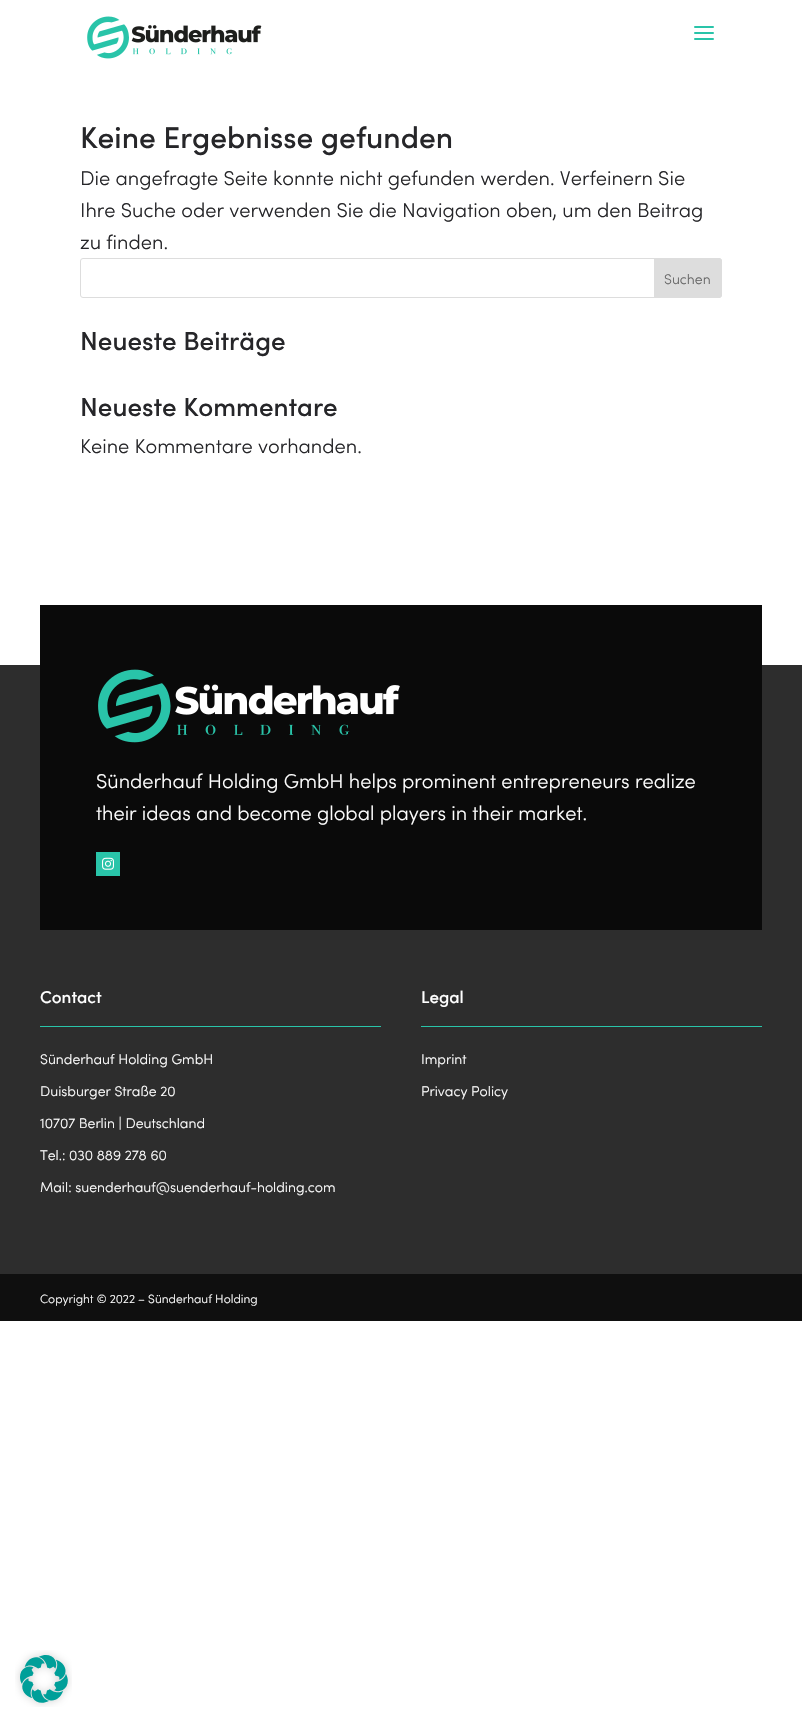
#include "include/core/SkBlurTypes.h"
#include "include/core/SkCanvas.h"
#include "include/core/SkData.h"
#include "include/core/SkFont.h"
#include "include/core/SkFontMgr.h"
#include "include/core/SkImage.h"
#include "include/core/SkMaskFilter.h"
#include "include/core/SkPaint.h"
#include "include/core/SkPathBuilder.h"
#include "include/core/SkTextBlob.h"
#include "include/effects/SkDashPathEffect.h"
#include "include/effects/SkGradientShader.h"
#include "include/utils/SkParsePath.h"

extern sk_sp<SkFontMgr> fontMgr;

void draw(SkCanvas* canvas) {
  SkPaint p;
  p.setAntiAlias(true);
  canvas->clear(SK_ColorWHITE);
  canvas->drawImageRect(SkImages::DeferredFromEncodedData(SkData::MakeFromFileName("images/1.png")), SkRect::MakeLTRB(87, 16, 262, 59), SkSamplingOptions());
  p.setColor(SkColorSetRGB(41, 196, 169));
  canvas->drawRoundRect(SkRect::MakeLTRB(694, 32, 714, 34), 1, 1, p);
  canvas->drawRoundRect(SkRect::MakeLTRB(694, 26, 714, 28), 1, 1, p);
  canvas->drawRoundRect(SkRect::MakeLTRB(694, 38, 714, 40), 1, 1, p);
  p.setStyle(SkPaint::kStroke_Style);
  p.setStrokeWidth(1);
  p.setColor(SkColorSetRGB(221, 221, 221));
  canvas->drawRoundRect(SkRect::MakeLTRB(80.5f, 258.5f, 721.5f, 297.5f), 2.5f, 2.5f, p);
  p.setStyle(SkPaint::kFill_Style);
  canvas->drawPath(SkPathBuilder().moveTo(654.5f, 258.5f).lineTo(719, 258.5f).cubicTo(720.5f, 258.5f, 721.5f, 259.5f, 721.5f, 261).lineTo(721.5f, 295).cubicTo(721.5f, 296.5f, 720.5f, 297.5f, 719, 297.5f).lineTo(654.5f, 297.5f).close().detach(), p);
  p.setStyle(SkPaint::kStroke_Style);
  canvas->drawPath(SkPathBuilder().moveTo(654.5f, 258.5f).lineTo(719, 258.5f).cubicTo(720.5f, 258.5f, 721.5f, 259.5f, 721.5f, 261).lineTo(721.5f, 295).cubicTo(721.5f, 296.5f, 720.5f, 297.5f, 719, 297.5f).lineTo(654.5f, 297.5f).close().detach(), p);
  p.setStyle(SkPaint::kFill_Style);
  p.setColor(SkColorSetRGB(45, 45, 45));
  canvas->drawRect(SkRect::MakeLTRB(0, 665, 802, 1274), p);
  p.setColor(SkColorSetRGB(10, 10, 10));
  canvas->drawRect(SkRect::MakeLTRB(40, 605, 762, 930), p);
  canvas->drawImageRect(SkImages::DeferredFromEncodedData(SkData::MakeFromFileName("images/2.png")), SkRect::MakeLTRB(98, 669, 400, 743), SkSamplingOptions());
  p.setColor(SkColorSetRGB(41, 196, 169));
  canvas->drawRect(SkRect::MakeLTRB(96, 852, 120, 876), p);
  canvas->drawImageRect(SkImages::DeferredFromEncodedData(SkData::MakeFromFileName("images/3.png")), SkRect::MakeLTRB(102, 857, 114, 870), SkSamplingOptions());
  canvas->drawRect(SkRect::MakeLTRB(40, 1026, 381, 1027), p);
  canvas->drawRect(SkRect::MakeLTRB(421, 1026, 762, 1027), p);
  p.setColor(SkColorSetRGB(15, 15, 15));
  canvas->drawRect(SkRect::MakeLTRB(0, 1274, 802, 1321), p);
  canvas->drawImageRect(SkImages::DeferredFromEncodedData(SkData::MakeFromFileName("images/4.png")), SkRect::MakeLTRB(15, 1650, 72, 1707), SkSamplingOptions());
  SkFont font1(fontMgr->matchFamilyStyle("Sofia", SkFontStyle(500, SkFontStyle::kNormal_Width, SkFontStyle::kUpright_Slant)), 30);
  font1.setSubpixel(true);
  p.setColor(SkColorSetRGB(38, 38, 41));
  canvas->drawString("Keine Ergebnisse gefunden", 80, 148, font1, p);
  SkFont font2(fontMgr->matchFamilyStyle("Sofia", SkFontStyle(300, SkFontStyle::kNormal_Width, SkFontStyle::kUpright_Slant)), 20);
  font2.setSubpixel(true);
  canvas->drawString("Die angefragte Seite konnte nicht gefunden werden. Verfeinern Sie", 80, 185, font2, p);
  canvas->drawString("Ihre Suche oder verwenden Sie die Navigation oben, um den Beitrag", 80, 217, font2, p);
  canvas->drawString("zu finden.", 80, 249, font2, p);
  SkFont font3(fontMgr->matchFamilyStyle("Sofia", SkFontStyle(300, SkFontStyle::kNormal_Width, SkFontStyle::kUpright_Slant)), 14);
  font3.setSubpixel(true);
  p.setColor(SkColorSetRGB(102, 102, 102));
  canvas->drawString("Suchen", 664, 284, font3, p);
  SkFont font4(fontMgr->matchFamilyStyle("Sofia", SkFontStyle(500, SkFontStyle::kNormal_Width, SkFontStyle::kUpright_Slant)), 26);
  font4.setSubpixel(true);
  p.setColor(SkColorSetRGB(38, 38, 41));
  canvas->drawString("Neueste Beiträge", 80, 350, font4, p);
  canvas->drawString("Neueste Kommentare", 80, 416, font4, p);
  canvas->drawString("Keine Kommentare vorhanden.", 80, 453, font2, p);
  p.setColor(SK_ColorWHITE);
  canvas->drawString("Sünderhauf Holding GmbH helps prominent entrepreneurs realize", 96, 788, font2, p);
  canvas->drawString("their ideas and become global players in their market.", 96, 820, font2, p);
  SkFont font5(fontMgr->matchFamilyStyle("Sofia", SkFontStyle(500, SkFontStyle::kNormal_Width, SkFontStyle::kUpright_Slant)), 17);
  font5.setSubpixel(true);
  canvas->drawString("Contact", 40, 1003, font5, p);
  canvas->drawString("Sünderhauf Holding GmbH", 40, 1064, font3, p);
  canvas->drawString("Duisburger Straße 20", 40, 1096, font3, p);
  canvas->drawString("10707 Berlin | Deutschland", 40, 1128, font3, p);
  canvas->drawString("Tel.: 030 889 278 60", 40, 1160, font3, p);
  canvas->drawString("Mail: suenderhauf@suenderhauf-holding.com", 40, 1192, font3, p);
  canvas->drawString("Legal", 421, 1003, font5, p);
  canvas->drawString("Imprint", 421, 1064, font3, p);
  canvas->drawString("Privacy Policy", 421, 1096, font3, p);
  SkFont font6(fontMgr->matchFamilyStyle("Sofia", SkFontStyle(300, SkFontStyle::kNormal_Width, SkFontStyle::kUpright_Slant)), 12);
  font6.setSubpixel(true);
  canvas->drawString("Copyright © 2022 – Sünderhauf Holding", 40, 1303, font6, p);
}
